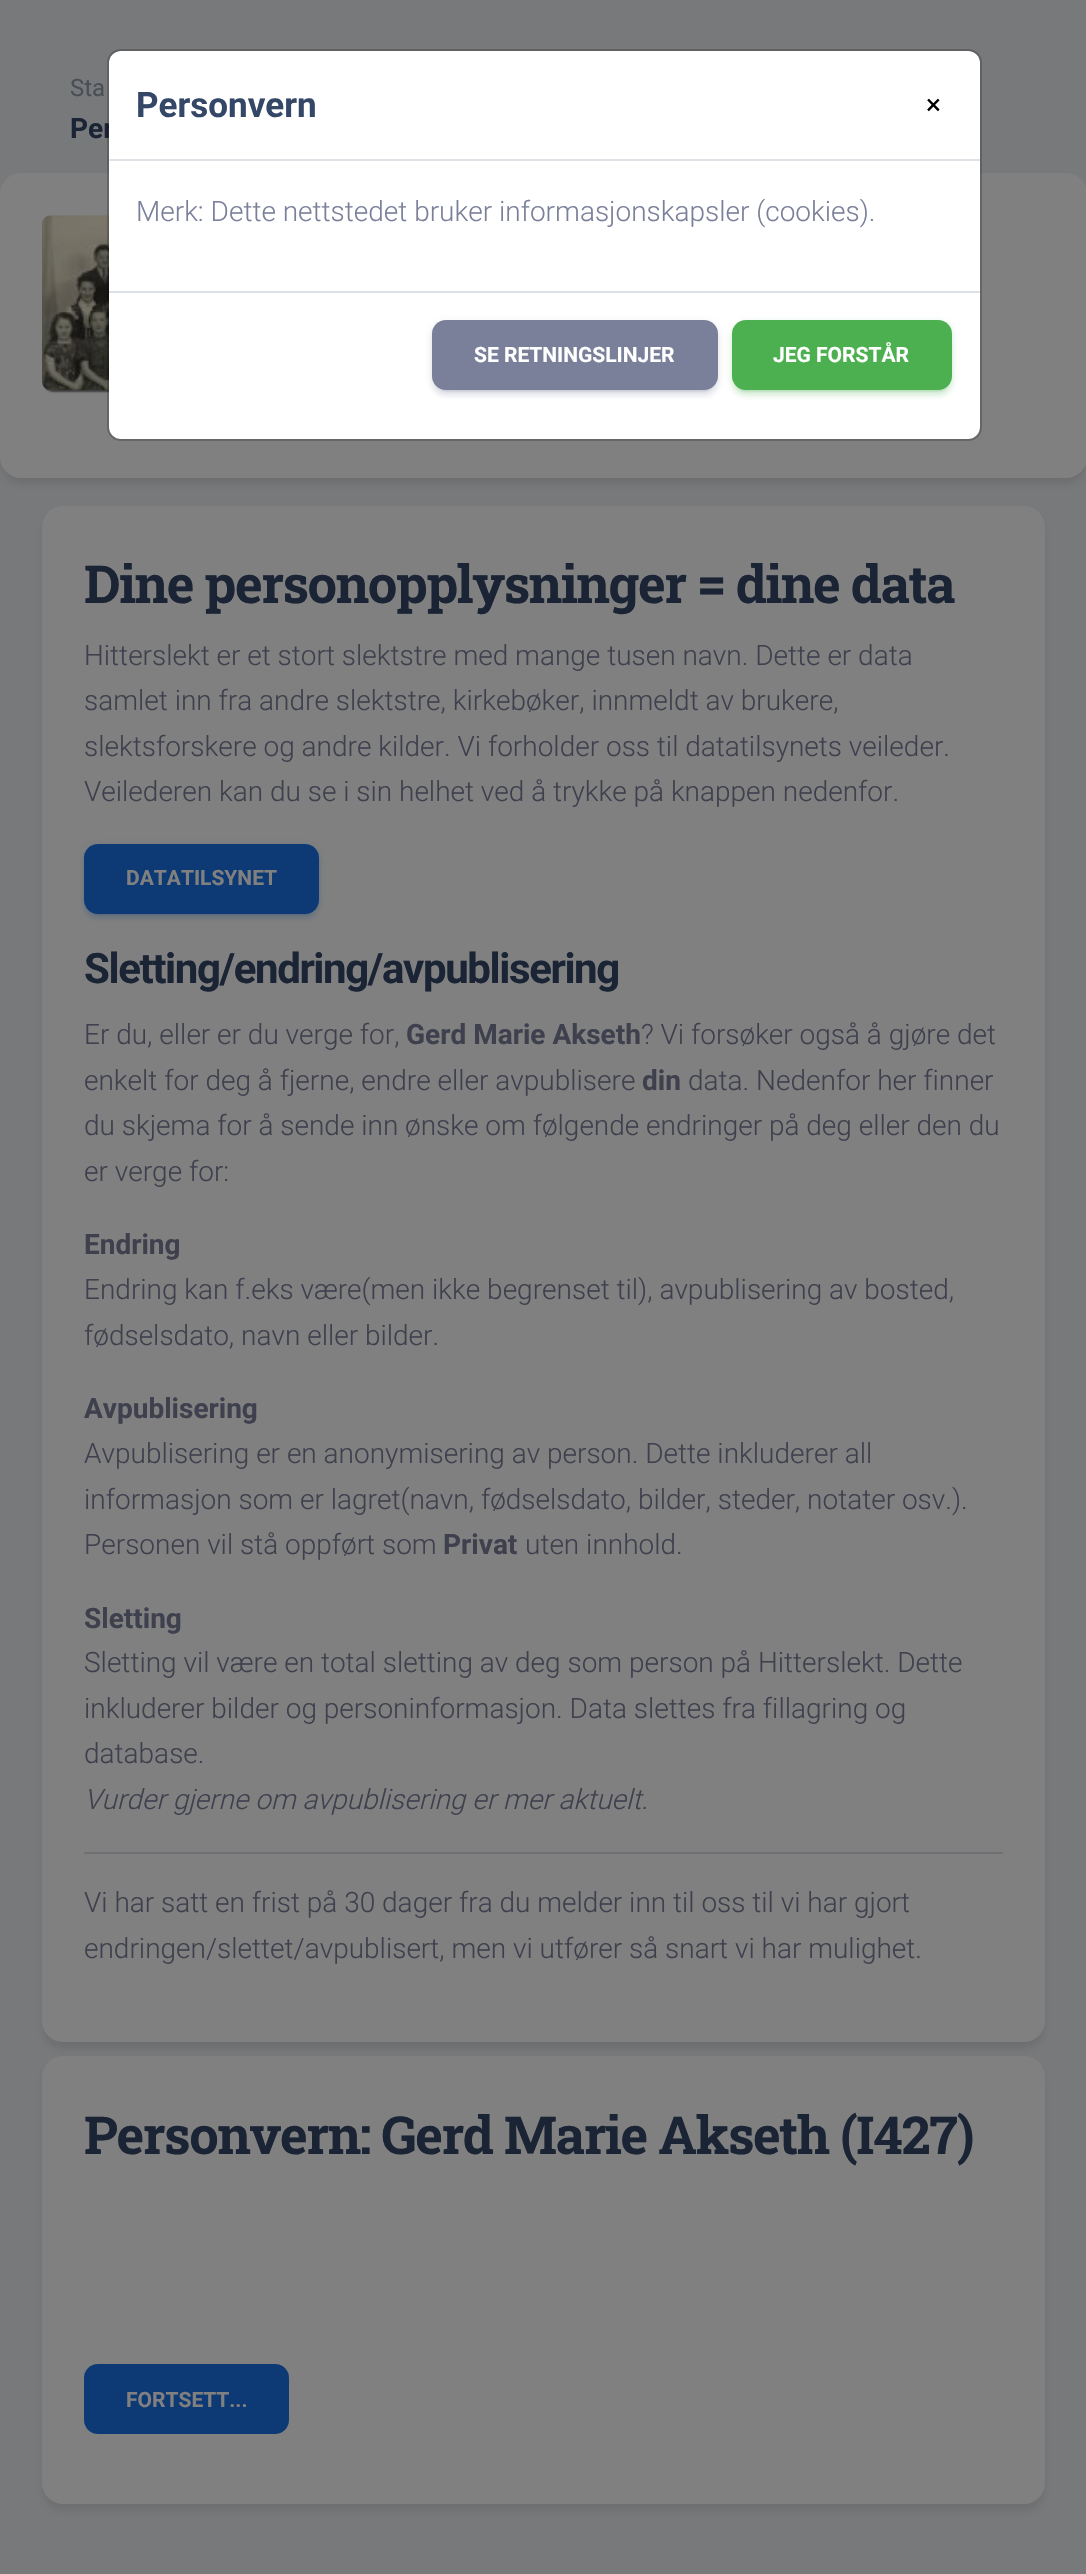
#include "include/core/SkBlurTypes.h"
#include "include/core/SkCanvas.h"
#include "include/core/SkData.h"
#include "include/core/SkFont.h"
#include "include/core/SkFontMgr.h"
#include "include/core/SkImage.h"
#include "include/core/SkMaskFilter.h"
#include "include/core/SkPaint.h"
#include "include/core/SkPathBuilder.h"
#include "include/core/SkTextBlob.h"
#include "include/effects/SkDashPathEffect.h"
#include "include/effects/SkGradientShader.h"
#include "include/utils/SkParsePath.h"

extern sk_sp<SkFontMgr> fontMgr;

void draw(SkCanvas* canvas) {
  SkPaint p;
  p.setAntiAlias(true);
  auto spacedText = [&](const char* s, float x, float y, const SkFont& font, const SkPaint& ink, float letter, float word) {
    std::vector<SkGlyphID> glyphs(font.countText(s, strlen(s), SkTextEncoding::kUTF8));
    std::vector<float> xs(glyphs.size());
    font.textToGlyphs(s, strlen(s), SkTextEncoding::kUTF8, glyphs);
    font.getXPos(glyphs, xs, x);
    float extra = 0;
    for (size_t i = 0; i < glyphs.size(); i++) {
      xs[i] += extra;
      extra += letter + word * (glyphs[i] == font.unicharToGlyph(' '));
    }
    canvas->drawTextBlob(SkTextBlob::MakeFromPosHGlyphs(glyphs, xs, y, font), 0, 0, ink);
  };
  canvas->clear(SkColorSetRGB(120, 121, 123));
  p.setColor(SkColorSetARGB(26, 0, 0, 0));
  p.setMaskFilter(SkMaskFilter::MakeBlur(kNormal_SkBlurStyle, 5));
  canvas->drawRoundRect(SkRect::MakeLTRB(2, 182, 1085, 483), 19, 19, p);
  p.setMaskFilter(nullptr);
  p.setColor(SkColorSetRGB(128, 128, 128));
  canvas->drawRoundRect(SkRect::MakeLTRB(0, 173, 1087, 478), 21, 21, p);
  p.setColor(SkColorSetRGB(60, 60, 60));
  p.setMaskFilter(SkMaskFilter::MakeBlur(kNormal_SkBlurStyle, 1));
  canvas->drawRoundRect(SkRect::MakeLTRB(44, 217, 303, 392), 9, 9, p);
  p.setMaskFilter(nullptr);
  canvas->drawImageRect(SkImages::DeferredFromEncodedData(SkData::MakeFromFileName("images/1.png")), SkRect::MakeLTRB(42, 215, 109, 391), SkSamplingOptions());
  p.setColor(SkColorSetARGB(26, 0, 0, 0));
  p.setMaskFilter(SkMaskFilter::MakeBlur(kNormal_SkBlurStyle, 5));
  canvas->drawRoundRect(SkRect::MakeLTRB(44, 515, 1043, 2048), 19, 19, p);
  p.setMaskFilter(nullptr);
  p.setColor(SkColorSetRGB(128, 128, 128));
  canvas->drawRoundRect(SkRect::MakeLTRB(42, 506, 1045, 2042), 21, 21, p);
  p.setColor(SkColorSetARGB(38, 13, 58, 116));
  p.setMaskFilter(SkMaskFilter::MakeBlur(kNormal_SkBlurStyle, 4.5f));
  canvas->drawRoundRect(SkRect::MakeLTRB(84, 845, 319, 915), 14, 14, p);
  p.setMaskFilter(nullptr);
  p.setColor(SkColorSetARGB(51, 13, 58, 116));
  p.setMaskFilter(SkMaskFilter::MakeBlur(kNormal_SkBlurStyle, 1));
  canvas->drawRoundRect(SkRect::MakeLTRB(88, 852, 315, 915), 11, 11, p);
  p.setMaskFilter(nullptr);
  p.setColor(SkColorSetARGB(38, 13, 58, 116));
  p.setMaskFilter(SkMaskFilter::MakeBlur(kNormal_SkBlurStyle, 2.5f));
  canvas->drawRoundRect(SkRect::MakeLTRB(84, 849, 319, 919), 14, 14, p);
  p.setMaskFilter(nullptr);
  p.setColor(SkColorSetRGB(13, 58, 116));
  canvas->drawRoundRect(SkRect::MakeLTRB(84, 844, 319, 914), 14, 14, p);
  p.setColor(SkColorSetRGB(111, 112, 115));
  canvas->drawRect(SkRect::MakeLTRB(84, 1852, 1003, 1854), p);
  p.setColor(SkColorSetARGB(26, 0, 0, 0));
  p.setMaskFilter(SkMaskFilter::MakeBlur(kNormal_SkBlurStyle, 5));
  canvas->drawRoundRect(SkRect::MakeLTRB(44, 2065, 1043, 2510), 19, 19, p);
  p.setMaskFilter(nullptr);
  p.setColor(SkColorSetRGB(128, 128, 128));
  canvas->drawRoundRect(SkRect::MakeLTRB(42, 2056, 1045, 2504), 21, 21, p);
  p.setColor(SkColorSetRGB(13, 58, 116));
  canvas->drawRoundRect(SkRect::MakeLTRB(84, 2364, 289, 2434), 14, 14, p);
  SkFont font1(fontMgr->matchFamilyStyle("Roboto", SkFontStyle::Normal()), 24);
  font1.setSubpixel(true);
  p.setColor(SkColorSetRGB(73, 79, 87));
  canvas->drawString("Sta", 70, 96, font1, p);
  SkFont font2(fontMgr->matchFamilyStyle("Roboto", SkFontStyle::Bold()), 28);
  font2.setSubpixel(true);
  p.setColor(SkColorSetRGB(26, 36, 52));
  canvas->drawString("Per", 70, 138, font2, p);
  p.setColor(SK_ColorWHITE);
  canvas->drawRoundRect(SkRect::MakeLTRB(109, 51, 980, 439), 12, 12, p);
  p.setStyle(SkPaint::kStroke_Style);
  p.setStrokeWidth(2);
  p.setColor(SkColorSetARGB(51, 0, 0, 0));
  canvas->drawRoundRect(SkRect::MakeLTRB(108, 50, 981, 440), 13, 13, p);
  p.setStyle(SkPaint::kFill_Style);
  p.setColor(SkColorSetRGB(222, 226, 230));
  canvas->drawRect(SkRect::MakeLTRB(109, 159, 980, 161), p);
  SkFont font3(fontMgr->matchFamilyStyle("Roboto", SkFontStyle::Bold()), 35);
  font3.setSubpixel(true);
  p.setColor(SkColorSetRGB(52, 71, 103));
  canvas->drawString("Personvern", 136, 117, font3, p);
  SkFont font4(fontMgr->matchFamilyStyle("Roboto", SkFontStyle::Normal()), 28);
  font4.setSubpixel(true);
  p.setColor(SK_ColorBLACK);
  canvas->drawString("×", 926, 114, font4, p);
  SkFont font5(fontMgr->matchFamilyStyle("Roboto", SkFontStyle(300, SkFontStyle::kNormal_Width, SkFontStyle::kUpright_Slant)), 28);
  font5.setSubpixel(true);
  p.setColor(SkColorSetRGB(123, 128, 154));
  canvas->drawString("Merk: Dette nettstedet bruker informasjonskapsler (cookies).", 136, 221, font5, p);
  p.setColor(SkColorSetRGB(222, 226, 230));
  canvas->drawRect(SkRect::MakeLTRB(109, 291, 980, 293), p);
  p.setColor(SkColorSetARGB(38, 123, 128, 154));
  p.setMaskFilter(SkMaskFilter::MakeBlur(kNormal_SkBlurStyle, 4.5f));
  canvas->drawRoundRect(SkRect::MakeLTRB(432, 322, 718, 392), 14, 14, p);
  p.setMaskFilter(nullptr);
  p.setColor(SkColorSetARGB(51, 123, 128, 154));
  p.setMaskFilter(SkMaskFilter::MakeBlur(kNormal_SkBlurStyle, 1));
  canvas->drawRoundRect(SkRect::MakeLTRB(436, 329, 714, 392), 11, 11, p);
  p.setMaskFilter(nullptr);
  p.setColor(SkColorSetARGB(38, 123, 128, 154));
  p.setMaskFilter(SkMaskFilter::MakeBlur(kNormal_SkBlurStyle, 2.5f));
  canvas->drawRoundRect(SkRect::MakeLTRB(432, 326, 718, 396), 14, 14, p);
  p.setMaskFilter(nullptr);
  p.setColor(SkColorSetRGB(123, 128, 154));
  canvas->drawRoundRect(SkRect::MakeLTRB(432, 320, 718, 390), 14, 14, p);
  SkFont font6(fontMgr->matchFamilyStyle("Roboto", SkFontStyle::Bold()), 21);
  font6.setSubpixel(true);
  p.setColor(SK_ColorWHITE);
  canvas->drawString("SE RETNINGSLINJER", 474, 362, font6, p);
  p.setColor(SkColorSetARGB(38, 76, 175, 80));
  p.setMaskFilter(SkMaskFilter::MakeBlur(kNormal_SkBlurStyle, 4.5f));
  canvas->drawRoundRect(SkRect::MakeLTRB(732, 322, 952, 392), 14, 14, p);
  p.setMaskFilter(nullptr);
  p.setColor(SkColorSetARGB(51, 76, 175, 80));
  p.setMaskFilter(SkMaskFilter::MakeBlur(kNormal_SkBlurStyle, 1));
  canvas->drawRoundRect(SkRect::MakeLTRB(735, 329, 949, 392), 11, 11, p);
  p.setMaskFilter(nullptr);
  p.setColor(SkColorSetARGB(38, 76, 175, 80));
  p.setMaskFilter(SkMaskFilter::MakeBlur(kNormal_SkBlurStyle, 2.5f));
  canvas->drawRoundRect(SkRect::MakeLTRB(732, 326, 952, 396), 14, 14, p);
  p.setMaskFilter(nullptr);
  p.setColor(SkColorSetRGB(76, 175, 80));
  canvas->drawRoundRect(SkRect::MakeLTRB(732, 320, 952, 390), 14, 14, p);
  p.setColor(SK_ColorWHITE);
  canvas->drawString("JEG FORSTÅR", 773, 362, font6, p);
  SkFont font7(fontMgr->matchFamilyStyle("Roboto Slab", SkFontStyle::Bold()), 52.5f);
  font7.setSubpixel(true);
  p.setColor(SkColorSetRGB(26, 36, 52));
  spacedText("Dine personopplysninger = dine data", 84, 603, font7, p, -1.4f, 0);
  p.setColor(SkColorSetRGB(62, 64, 77));
  canvas->drawString("Hitterslekt er et stort slektstre med mange tusen navn. Dette er data", 84, 665, font5, p);
  canvas->drawString("samlet inn fra andre slektstre, kirkebøker, innmeldt av brukere,", 84, 710, font5, p);
  canvas->drawString("slektsforskere og andre kilder. Vi forholder oss til datatilsynets veileder.", 84, 756, font5, p);
  canvas->drawString("Veilederen kan du se i sin helhet ved å trykke på knappen nedenfor.", 84, 801, font5, p);
  p.setColor(SkColorSetRGB(128, 128, 128));
  canvas->drawString("DATATILSYNET", 126, 885, font6, p);
  SkFont font8(fontMgr->matchFamilyStyle("Roboto", SkFontStyle::Bold()), 42);
  font8.setSubpixel(true);
  p.setColor(SkColorSetRGB(26, 36, 52));
  spacedText("Sletting/endring/avpublisering", 84, 983, font8, p, -1.4f, 0);
  p.setColor(SkColorSetRGB(62, 64, 77));
  canvas->drawString("Er du, eller er du verge for,", 84, 1044, font5, p);
  canvas->drawString("Gerd Marie Akseth", 406, 1044, font2, p);
  canvas->drawString("? Vi forsøker også å gjøre det", 641, 1044, font5, p);
  canvas->drawString("enkelt for deg å fjerne, endre eller avpublisere", 84, 1090, font5, p);
  canvas->drawString("din", 642, 1090, font2, p);
  canvas->drawString("data. Nedenfor her finner", 688, 1090, font5, p);
  canvas->drawString("du skjema for å sende inn ønske om følgende endringer på deg eller den du", 84, 1135, font5, p);
  canvas->drawString("er verge for:", 84, 1181, font5, p);
  canvas->drawString("Endring", 84, 1254, font2, p);
  canvas->drawString("Endring kan f.eks være(men ikke begrenset til), avpublisering av bosted,", 84, 1299, font5, p);
  canvas->drawString("fødselsdato, navn eller bilder.", 84, 1345, font5, p);
  canvas->drawString("Avpublisering", 84, 1418, font2, p);
  canvas->drawString("Avpublisering er en anonymisering av person. Dette inkluderer all", 84, 1463, font5, p);
  canvas->drawString("informasjon som er lagret(navn, fødselsdato, bilder, steder, notater osv.).", 84, 1509, font5, p);
  canvas->drawString("Personen vil stå oppført som", 84, 1554, font5, p);
  canvas->drawString("Privat", 443, 1554, font2, p);
  canvas->drawString("uten innhold.", 525, 1554, font5, p);
  canvas->drawString("Sletting", 84, 1628, font2, p);
  canvas->drawString("Sletting vil være en total sletting av deg som person på Hitterslekt. Dette", 84, 1672, font5, p);
  canvas->drawString("inkluderer bilder og personinformasjon. Data slettes fra fillagring og", 84, 1718, font5, p);
  canvas->drawString("database.", 84, 1763, font5, p);
  SkFont font9(fontMgr->matchFamilyStyle("Roboto", SkFontStyle(300, SkFontStyle::kNormal_Width, SkFontStyle::kItalic_Slant)), 28);
  font9.setSubpixel(true);
  canvas->drawString("Vurder gjerne om avpublisering er mer aktuelt.", 84, 1809, font9, p);
  canvas->drawString("Vi har satt en frist på 30 dager fra du melder inn til oss til vi har gjort", 84, 1912, font5, p);
  canvas->drawString("endringen/slettet/avpublisert, men vi utfører så snart vi har mulighet.", 84, 1958, font5, p);
  p.setColor(SkColorSetRGB(26, 36, 52));
  spacedText("Personvern: Gerd Marie Akseth (I427)", 84, 2154, font7, p, -1.4f, 0);
  p.setColor(SkColorSetRGB(128, 128, 128));
  canvas->drawString("FORTSETT...", 126, 2407, font6, p);
}
